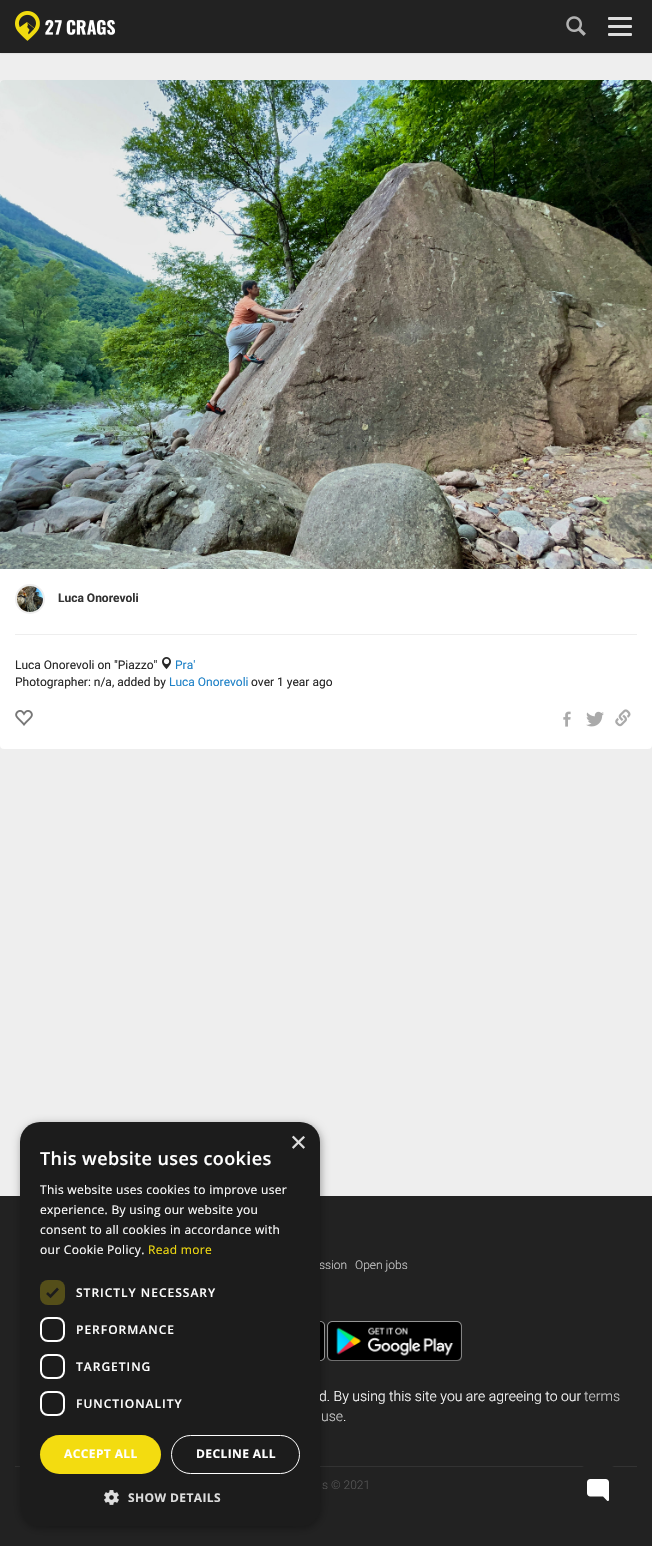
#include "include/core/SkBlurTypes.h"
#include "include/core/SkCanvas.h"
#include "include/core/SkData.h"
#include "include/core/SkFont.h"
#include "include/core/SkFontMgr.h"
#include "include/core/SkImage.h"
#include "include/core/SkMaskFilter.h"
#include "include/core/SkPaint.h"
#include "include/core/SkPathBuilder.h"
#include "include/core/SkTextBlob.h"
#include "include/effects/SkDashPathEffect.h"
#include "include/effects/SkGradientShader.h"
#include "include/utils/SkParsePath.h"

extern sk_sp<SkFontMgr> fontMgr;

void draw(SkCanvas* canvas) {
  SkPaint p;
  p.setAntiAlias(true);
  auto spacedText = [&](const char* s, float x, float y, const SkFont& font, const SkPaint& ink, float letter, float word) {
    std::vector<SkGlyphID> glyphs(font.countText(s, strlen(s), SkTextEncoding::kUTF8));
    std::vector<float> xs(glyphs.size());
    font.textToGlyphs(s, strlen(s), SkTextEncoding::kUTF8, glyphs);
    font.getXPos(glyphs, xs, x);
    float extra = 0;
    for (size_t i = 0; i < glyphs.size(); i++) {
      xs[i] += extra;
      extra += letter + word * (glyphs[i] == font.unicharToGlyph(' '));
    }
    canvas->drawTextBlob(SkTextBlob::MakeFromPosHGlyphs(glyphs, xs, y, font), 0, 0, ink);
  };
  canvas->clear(SkColorSetRGB(238, 238, 238));
  p.setColor(SkColorSetRGB(1, 1, 1));
  p.setMaskFilter(SkMaskFilter::MakeBlur(kNormal_SkBlurStyle, 1.5f));
  canvas->drawRect(SkRect::MakeLTRB(0, 1, 652, 51), p);
  p.setMaskFilter(nullptr);
  p.setColor(SkColorSetRGB(34, 34, 34));
  canvas->drawRect(SkRect::MakeLTRB(0, 0, 652, 53), p);
  canvas->drawImageRect(SkImages::DeferredFromEncodedData(SkData::MakeFromFileName("images/1.png")), SkRect::MakeLTRB(15, 11, 115, 41), SkSamplingOptions());
  canvas->drawImageRect(SkImages::DeferredFromEncodedData(SkData::MakeFromFileName("images/2.png")), SkRect::MakeLTRB(566, 16, 586, 36), SkSamplingOptions());
  p.setColor(SkColorSetRGB(222, 222, 222));
  canvas->drawRoundRect(SkRect::MakeLTRB(608, 17, 632, 20), 1, 1, p);
  canvas->drawRoundRect(SkRect::MakeLTRB(608, 25, 632, 28), 1, 1, p);
  canvas->drawRoundRect(SkRect::MakeLTRB(608, 33, 632, 36), 1, 1, p);
  p.setColor(SK_ColorWHITE);
  canvas->drawRoundRect(SkRect::MakeLTRB(0, 80, 652, 749), 4, 4, p);
  canvas->drawImageRect(SkImages::DeferredFromEncodedData(SkData::MakeFromFileName("images/3.png")), SkRect::MakeLTRB(0, 80, 652, 569), SkSamplingOptions());
  p.setStyle(SkPaint::kStroke_Style);
  p.setStrokeWidth(2);
  p.setColor(SkColorSetRGB(238, 238, 238));
  canvas->drawCircle(30, 599, 14, p);
  canvas->drawImageRect(SkImages::DeferredFromEncodedData(SkData::MakeFromFileName("images/4.png")), SkRect::MakeLTRB(17, 586, 43, 612), SkSamplingOptions());
  p.setStyle(SkPaint::kFill_Style);
  canvas->drawRect(SkRect::MakeLTRB(15, 634, 637, 635), p);
  canvas->drawImageRect(SkImages::DeferredFromEncodedData(SkData::MakeFromFileName("images/5.png")), SkRect::MakeLTRB(162, 657, 171, 670), SkSamplingOptions());
  canvas->drawImageRect(SkImages::DeferredFromEncodedData(SkData::MakeFromFileName("images/6.png")), SkRect::MakeLTRB(15, 710, 33, 726), SkSamplingOptions());
  canvas->drawImageRect(SkImages::DeferredFromEncodedData(SkData::MakeFromFileName("images/7.png")), SkRect::MakeLTRB(563, 711, 571, 727), SkSamplingOptions());
  canvas->drawImageRect(SkImages::DeferredFromEncodedData(SkData::MakeFromFileName("images/8.png")), SkRect::MakeLTRB(586, 711, 604, 727), SkSamplingOptions());
  canvas->drawImageRect(SkImages::DeferredFromEncodedData(SkData::MakeFromFileName("images/9.png")), SkRect::MakeLTRB(615, 709, 631, 727), SkSamplingOptions());
  p.setColor(SkColorSetRGB(34, 34, 34));
  canvas->drawRect(SkRect::MakeLTRB(0, 1196, 652, 1546), p);
  canvas->drawImageRect(SkImages::DeferredFromEncodedData(SkData::MakeFromFileName("images/10.png")), SkRect::MakeLTRB(320, 1321, 325, 1361), SkSamplingOptions());
  canvas->drawImageRect(SkImages::DeferredFromEncodedData(SkData::MakeFromFileName("images/11.png")), SkRect::MakeLTRB(327, 1321, 462, 1361), SkSamplingOptions());
  p.setColor(SkColorSetRGB(51, 51, 51));
  canvas->drawRect(SkRect::MakeLTRB(15, 1466, 637, 1467), p);
  p.setColor(SkColorSetARGB(89, 0, 0, 0));
  p.setMaskFilter(SkMaskFilter::MakeBlur(kNormal_SkBlurStyle, 4));
  canvas->drawRoundRect(SkRect::MakeLTRB(21, 1124, 321, 1528), 20, 20, p);
  p.setMaskFilter(nullptr);
  canvas->drawImageRect(SkImages::DeferredFromEncodedData(SkData::MakeFromFileName("images/13.png")), SkRect::MakeLTRB(582, 1466, 614, 1501), SkSamplingOptions());
  SkFont font1(fontMgr->matchFamilyStyle("Roboto", SkFontStyle::Bold()), 12);
  font1.setSubpixel(true);
  p.setColor(SkColorSetRGB(51, 51, 51));
  canvas->drawString("Luca Onorevoli", 58, 602, font1, p);
  SkFont font2(fontMgr->matchFamilyStyle("Roboto", SkFontStyle::Normal()), 12);
  font2.setSubpixel(true);
  p.setColor(SkColorSetRGB(39, 39, 39));
  canvas->drawString("Luca Onorevoli on \"Piazzo\"", 15, 669, font2, p);
  p.setColor(SkColorSetRGB(30, 129, 199));
  canvas->drawString("Pra'", 175, 669, font2, p);
  p.setColor(SkColorSetRGB(39, 39, 39));
  canvas->drawString("Photographer: n/a, added by", 15, 686, font2, p);
  p.setColor(SkColorSetRGB(30, 129, 199));
  canvas->drawString("Luca Onorevoli", 169, 686, font2, p);
  p.setColor(SkColorSetRGB(39, 39, 39));
  canvas->drawString("over 1 year ago", 251, 686, font2, p);
  SkFont font3(fontMgr->matchFamilyStyle("Roboto", SkFontStyle(300, SkFontStyle::kNormal_Width, SkFontStyle::kUpright_Slant)), 12);
  font3.setSubpixel(true);
  p.setColor(SkColorSetRGB(204, 204, 204));
  canvas->drawString("ssion", 319, 1269, font3, p);
  canvas->drawString("Open jobs", 355, 1269, font3, p);
  SkFont font4(fontMgr->matchFamilyStyle("Roboto", SkFontStyle(300, SkFontStyle::kNormal_Width, SkFontStyle::kUpright_Slant)), 14);
  font4.setSubpixel(true);
  p.setColor(SK_ColorWHITE);
  canvas->drawString("d. By using this site you are agreeing to our", 319, 1401, font4, p);
  p.setColor(SkColorSetRGB(204, 204, 204));
  canvas->drawString("terms", 584, 1401, font4, p);
  canvas->drawString("use", 321, 1421, font4, p);
  p.setColor(SK_ColorWHITE);
  canvas->drawString(".", 343, 1421, font4, p);
  p.setColor(SkColorSetRGB(85, 85, 85));
  canvas->drawString("s © 2021", 322, 1489, font3, p);
  p.setColor(SkColorSetRGB(28, 28, 28));
  canvas->drawRoundRect(SkRect::MakeLTRB(20, 1122, 320, 1526), 20, 20, p);
  SkFont font5(fontMgr->matchFamilyStyle("Liberation Sans", SkFontStyle::Normal()), 29);
  font5.setSubpixel(true);
  p.setColor(SkColorSetRGB(221, 221, 221));
  canvas->drawString("×", 290, 1152, font5, p);
  SkFont font6(fontMgr->matchFamilyStyle("Open Sans", SkFontStyle(600, SkFontStyle::kNormal_Width, SkFontStyle::kUpright_Slant)), 18);
  font6.setSubpixel(true);
  p.setColor(SK_ColorWHITE);
  spacedText("This website uses cookies", 40, 1165, font6, p, 0.4f, 0);
  SkFont font7(fontMgr->matchFamilyStyle("Open Sans", SkFontStyle::Normal()), 12);
  font7.setSubpixel(true);
  spacedText("This website uses cookies to improve user", 40, 1194, font7, p, 0.3f, 0);
  spacedText("experience. By using our website you", 40, 1214, font7, p, 0.3f, 0);
  spacedText("consent to all cookies in accordance with", 40, 1234, font7, p, 0.3f, 0);
  spacedText("our Cookie Policy.", 40, 1254, font7, p, 0.3f, 0);
  p.setColor(SkColorSetRGB(243, 220, 16));
  spacedText("Read more", 148, 1254, font7, p, 0.3f, 0);
  p.setColor(SkColorSetRGB(84, 78, 25));
  canvas->drawRoundRect(SkRect::MakeLTRB(40, 1280, 65, 1305), 8, 8, p);
  p.setStyle(SkPaint::kStroke_Style);
  p.setStrokeWidth(2.6f);
  p.setColor(SkColorSetRGB(28, 28, 28));
  canvas->drawPath(SkPathBuilder().moveTo(47, 1293).lineTo(50.5f, 1296.5f).lineTo(58, 1288.5f).detach(), p);
  SkFont font8(fontMgr->matchFamilyStyle("Open Sans", SkFontStyle(600, SkFontStyle::kNormal_Width, SkFontStyle::kUpright_Slant)), 12);
  font8.setSubpixel(true);
  p.setStyle(SkPaint::kFill_Style);
  p.setColor(SK_ColorWHITE);
  spacedText("STRICTLY NECESSARY", 76, 1297, font8, p, 1, 0);
  p.setStyle(SkPaint::kStroke_Style);
  p.setStrokeWidth(2);
  canvas->drawRoundRect(SkRect::MakeLTRB(41, 1318, 64, 1341), 7, 7, p);
  p.setStyle(SkPaint::kFill_Style);
  spacedText("PERFORMANCE", 76, 1334, font8, p, 1, 0);
  p.setStyle(SkPaint::kStroke_Style);
  canvas->drawRoundRect(SkRect::MakeLTRB(41, 1355, 64, 1378), 7, 7, p);
  p.setStyle(SkPaint::kFill_Style);
  spacedText("TARGETING", 76, 1371, font8, p, 1, 0);
  p.setStyle(SkPaint::kStroke_Style);
  canvas->drawRoundRect(SkRect::MakeLTRB(41, 1392, 64, 1415), 7, 7, p);
  p.setStyle(SkPaint::kFill_Style);
  spacedText("FUNCTIONALITY", 76, 1408, font8, p, 1, 0);
  p.setColor(SkColorSetRGB(243, 220, 16));
  canvas->drawRoundRect(SkRect::MakeLTRB(40, 1435, 161, 1474), 19.5f, 19.5f, p);
  SkFont font9(fontMgr->matchFamilyStyle("Open Sans", SkFontStyle::Bold()), 12);
  font9.setSubpixel(true);
  p.setColor(SK_ColorWHITE);
  spacedText("ACCEPT ALL", 64, 1458, font9, p, 0.4f, 0);
  p.setStyle(SkPaint::kStroke_Style);
  p.setStrokeWidth(1);
  canvas->drawRoundRect(SkRect::MakeLTRB(171.5f, 1435.5f, 299.5f, 1473.5f), 19, 19, p);
  p.setStyle(SkPaint::kFill_Style);
  spacedText("DECLINE ALL", 196, 1458, font9, p, 0.4f, 0);
  canvas->drawImageRect(SkImages::DeferredFromEncodedData(SkData::MakeFromFileName("images/12.png")), SkRect::MakeLTRB(104, 1490, 119, 1505), SkSamplingOptions());
  p.setColor(SkColorSetRGB(221, 221, 221));
  spacedText("SHOW DETAILS", 128, 1502, font9, p, 0.4f, 0);
}
